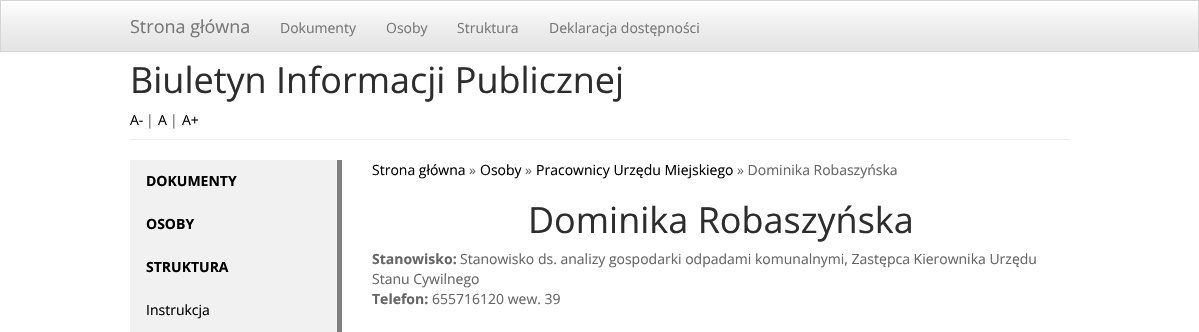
#include "include/core/SkBlurTypes.h"
#include "include/core/SkCanvas.h"
#include "include/core/SkData.h"
#include "include/core/SkFont.h"
#include "include/core/SkFontMgr.h"
#include "include/core/SkImage.h"
#include "include/core/SkMaskFilter.h"
#include "include/core/SkPaint.h"
#include "include/core/SkPathBuilder.h"
#include "include/core/SkTextBlob.h"
#include "include/effects/SkDashPathEffect.h"
#include "include/effects/SkGradientShader.h"
#include "include/utils/SkParsePath.h"

extern sk_sp<SkFontMgr> fontMgr;

void draw(SkCanvas* canvas) {
  SkPaint p;
  p.setAntiAlias(true);
  canvas->clear(SK_ColorWHITE);
  {
    const SkColor colors[] = {SK_ColorWHITE, SkColorSetRGB(238, 238, 238), SkColorSetRGB(228, 228, 228)};
    const float stops[] = {0, 0.5f, 1};
    const SkPoint ends[] = {{600, 1}, {600, 51}};
    p.setShader(SkGradientShader::MakeLinear(ends, colors, stops, 3, SkTileMode::kClamp));
    p.setAlpha(255);
  }
  canvas->drawRect(SkRect::MakeLTRB(1, 5, 1198, 51), p);
  p.setStyle(SkPaint::kStroke_Style);
  p.setStrokeWidth(1);
  p.setShader(nullptr);
  p.setColor(SkColorSetRGB(213, 213, 213));
  canvas->drawRect(SkRect::MakeLTRB(0.5f, 0.5f, 1198.5f, 51.5f), p);
  p.setStyle(SkPaint::kFill_Style);
  p.setColor(SkColorSetRGB(238, 238, 238));
  canvas->drawRect(SkRect::MakeLTRB(130, 139, 1070, 140), p);
  p.setColor(SkColorSetRGB(241, 241, 241));
  canvas->drawRect(SkRect::MakeLTRB(130, 160, 337, 332), p);
  p.setColor(SkColorSetRGB(128, 128, 128));
  canvas->drawRect(SkRect::MakeLTRB(337, 160, 342, 332), p);
  SkFont font1(fontMgr->matchFamilyStyle("Open Sans", SkFontStyle::Normal()), 18);
  font1.setSubpixel(true);
  p.setColor(SkColorSetRGB(119, 119, 119));
  canvas->drawString("Strona główna", 130, 33, font1, p);
  SkFont font2(fontMgr->matchFamilyStyle("Open Sans", SkFontStyle::Normal()), 14);
  font2.setSubpixel(true);
  canvas->drawString("Dokumenty", 280, 33, font2, p);
  canvas->drawString("Osoby", 386, 33, font2, p);
  canvas->drawString("Struktura", 457, 33, font2, p);
  canvas->drawString("Deklaracja dostępności", 549, 33, font2, p);
  SkFont font3(fontMgr->matchFamilyStyle("Open Sans", SkFontStyle::Normal()), 36);
  font3.setSubpixel(true);
  p.setColor(SkColorSetRGB(45, 45, 45));
  canvas->drawString("Biuletyn Informacji Publicznej", 130, 93, font3, p);
  p.setColor(SK_ColorBLACK);
  canvas->drawString("A-", 130, 125, font2, p);
  p.setColor(SkColorSetRGB(102, 102, 102));
  canvas->drawString("|", 146, 125, font2, p);
  p.setColor(SK_ColorBLACK);
  canvas->drawString("A", 158, 125, font2, p);
  p.setColor(SkColorSetRGB(102, 102, 102));
  canvas->drawString("|", 170, 125, font2, p);
  p.setColor(SK_ColorBLACK);
  canvas->drawString("A+", 182, 125, font2, p);
  SkFont font4(fontMgr->matchFamilyStyle("Open Sans", SkFontStyle::Bold()), 14);
  font4.setSubpixel(true);
  canvas->drawString("DOKUMENTY", 146, 186, font4, p);
  canvas->drawString("OSOBY", 146, 229, font4, p);
  canvas->drawString("STRUKTURA", 146, 272, font4, p);
  canvas->drawString("Instrukcja", 146, 315, font2, p);
  canvas->drawString("Strona główna", 372, 175, font2, p);
  p.setColor(SkColorSetRGB(102, 102, 102));
  canvas->drawString("»", 469, 175, font2, p);
  p.setColor(SK_ColorBLACK);
  canvas->drawString("Osoby", 480, 175, font2, p);
  p.setColor(SkColorSetRGB(102, 102, 102));
  canvas->drawString("»", 525, 175, font2, p);
  p.setColor(SK_ColorBLACK);
  canvas->drawString("Pracownicy Urzędu Miejskiego", 536, 175, font2, p);
  p.setColor(SkColorSetRGB(102, 102, 102));
  canvas->drawString("» Dominika Robaszyńska", 737, 175, font2, p);
  p.setColor(SkColorSetRGB(45, 45, 45));
  canvas->drawString("Dominika Robaszyńska", 528, 233, font3, p);
  p.setColor(SkColorSetRGB(102, 102, 102));
  canvas->drawString("Stanowisko:", 372, 264, font4, p);
  canvas->drawString("Stanowisko ds. analizy gospodarki odpadami komunalnymi, Zastępca Kierownika Urzędu", 460, 264, font2, p);
  canvas->drawString("Stanu Cywilnego", 372, 284, font2, p);
  canvas->drawString("Telefon:", 372, 304, font4, p);
  canvas->drawString("655716120 wew. 39", 432, 304, font2, p);
}
